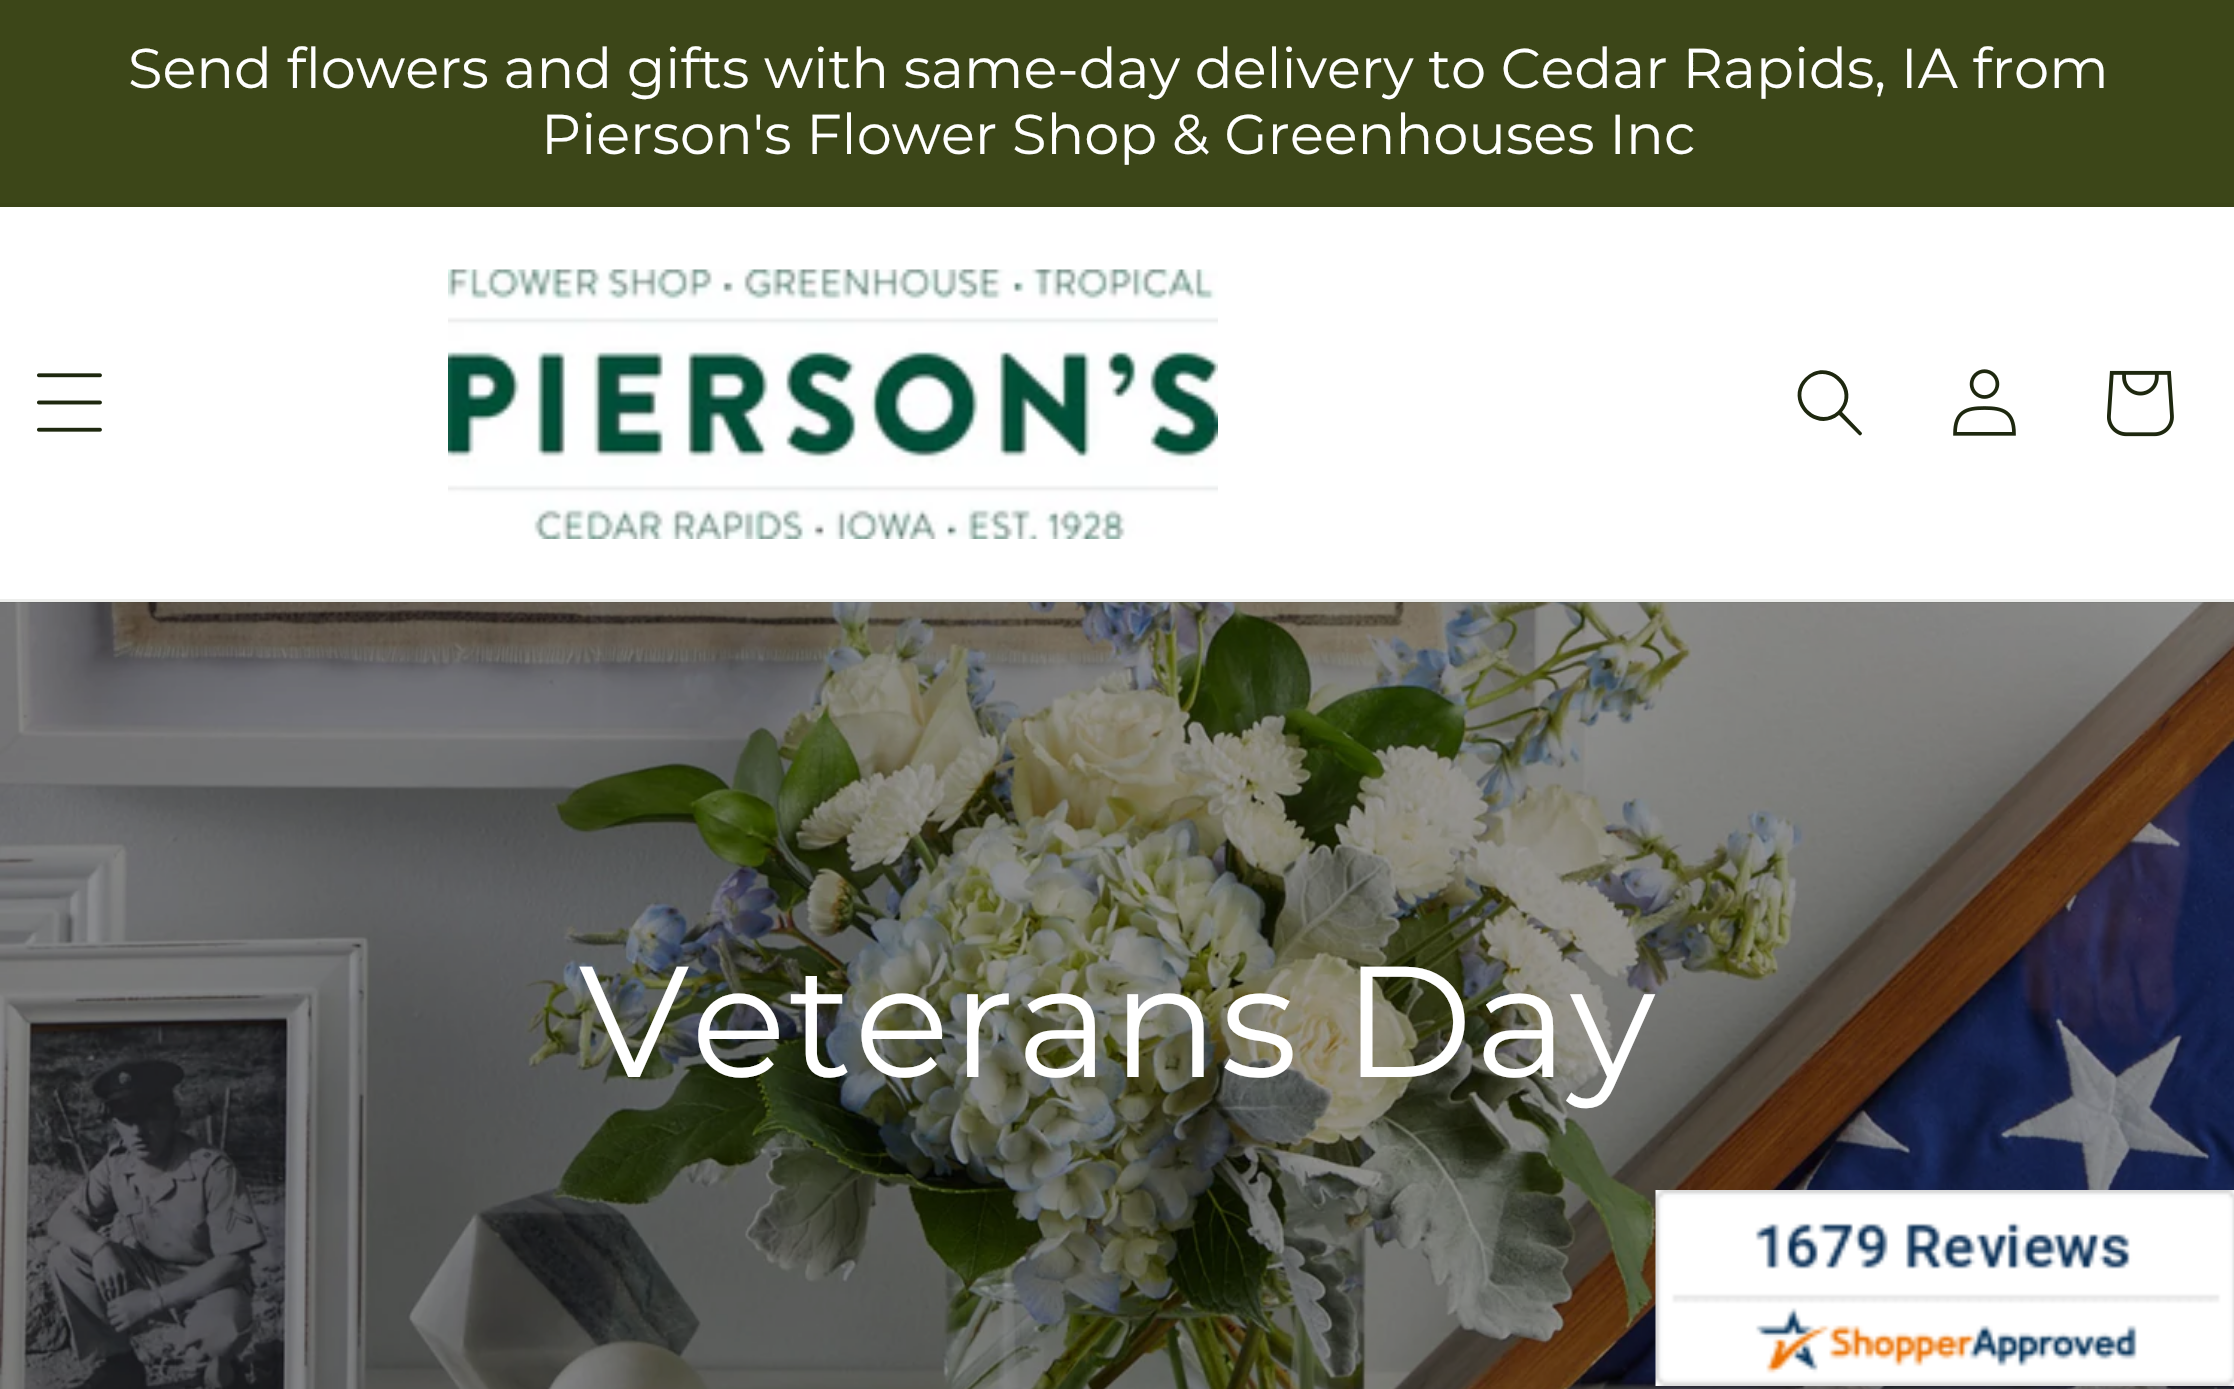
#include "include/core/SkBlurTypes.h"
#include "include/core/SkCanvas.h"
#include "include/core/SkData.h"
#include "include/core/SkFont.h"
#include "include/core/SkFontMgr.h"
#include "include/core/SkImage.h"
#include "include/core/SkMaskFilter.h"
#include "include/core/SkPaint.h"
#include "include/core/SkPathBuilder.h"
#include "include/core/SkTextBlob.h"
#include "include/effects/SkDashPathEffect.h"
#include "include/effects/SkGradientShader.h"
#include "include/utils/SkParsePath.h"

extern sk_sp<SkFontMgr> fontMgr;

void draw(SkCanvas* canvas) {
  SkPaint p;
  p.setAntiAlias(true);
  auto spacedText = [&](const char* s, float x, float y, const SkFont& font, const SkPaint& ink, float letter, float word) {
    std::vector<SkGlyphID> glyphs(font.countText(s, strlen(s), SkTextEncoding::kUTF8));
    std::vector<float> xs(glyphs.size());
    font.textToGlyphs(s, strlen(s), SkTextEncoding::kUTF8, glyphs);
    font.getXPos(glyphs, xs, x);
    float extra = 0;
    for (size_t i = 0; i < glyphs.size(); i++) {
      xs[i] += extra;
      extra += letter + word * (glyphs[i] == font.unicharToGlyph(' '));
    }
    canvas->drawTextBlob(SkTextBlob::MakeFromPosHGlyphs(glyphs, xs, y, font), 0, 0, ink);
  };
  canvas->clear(SK_ColorWHITE);
  p.setColor(SkColorSetRGB(60, 70, 24));
  canvas->drawRect(SkRect::MakeLTRB(0, 0, 2234, 203), p);
  p.setColor(SkColorSetRGB(58, 68, 23));
  canvas->drawRect(SkRect::MakeLTRB(0, 203, 2234, 207), p);
  canvas->drawImageRect(SkImages::DeferredFromEncodedData(SkData::MakeFromFileName("images/5.png")), SkRect::MakeLTRB(0, 602, 2234, 1389), SkSamplingOptions());
  p.setColor(SkColorSetARGB(20, 30, 40, 15));
  canvas->drawRect(SkRect::MakeLTRB(0, 599, 2234, 603), p);
  canvas->drawImageRect(SkImages::DeferredFromEncodedData(SkData::MakeFromFileName("images/1.png")), SkRect::MakeLTRB(37, 373, 102, 432), SkSamplingOptions());
  canvas->drawImageRect(SkImages::DeferredFromEncodedData(SkData::MakeFromFileName("images/2.png")), SkRect::MakeLTRB(448, 269, 1218, 539), SkSamplingOptions());
  p.setColor(SkColorSetRGB(30, 40, 15));
  canvas->drawPath(SkPathBuilder(SkPathFillType::kEvenOdd).moveTo(1838, 411).cubicTo(1818, 430, 1788, 400, 1808, 380).cubicTo(1828, 361, 1858, 391, 1838, 411).moveTo(1839, 415).cubicTo(1815, 435, 1783, 400, 1805, 378).cubicTo(1828, 355, 1863, 388, 1842, 412).lineTo(1862, 433).cubicTo(1862, 435, 1860, 436, 1859, 435).close().detach(), p);
  canvas->drawImageRect(SkImages::DeferredFromEncodedData(SkData::MakeFromFileName("images/3.png")), SkRect::MakeLTRB(1953, 369, 2016, 436), SkSamplingOptions());
  canvas->drawImageRect(SkImages::DeferredFromEncodedData(SkData::MakeFromFileName("images/4.png")), SkRect::MakeLTRB(2107, 370, 2174, 437), SkSamplingOptions());
  canvas->drawImageRect(SkImages::DeferredFromEncodedData(SkData::MakeFromFileName("images/6.png")), SkRect::MakeLTRB(1655, 1190, 2234, 1386), SkSamplingOptions());
  SkFont font1(fontMgr->matchFamilyStyle("Montserrat", SkFontStyle::Normal()), 56);
  font1.setSubpixel(true);
  p.setColor(SK_ColorWHITE);
  canvas->drawString("Send flowers and gifts with same-day delivery to Cedar Rapids, IA from", 128, 88, font1, p);
  canvas->drawString("Pierson's Flower Shop & Greenhouses Inc", 541, 154, font1, p);
  SkFont font2(fontMgr->matchFamilyStyle("Montserrat", SkFontStyle::Normal()), 157.5f);
  font2.setSubpixel(true);
  spacedText("Veterans Day", 579, 1077, font2, p, 2.1f, 0);
}
